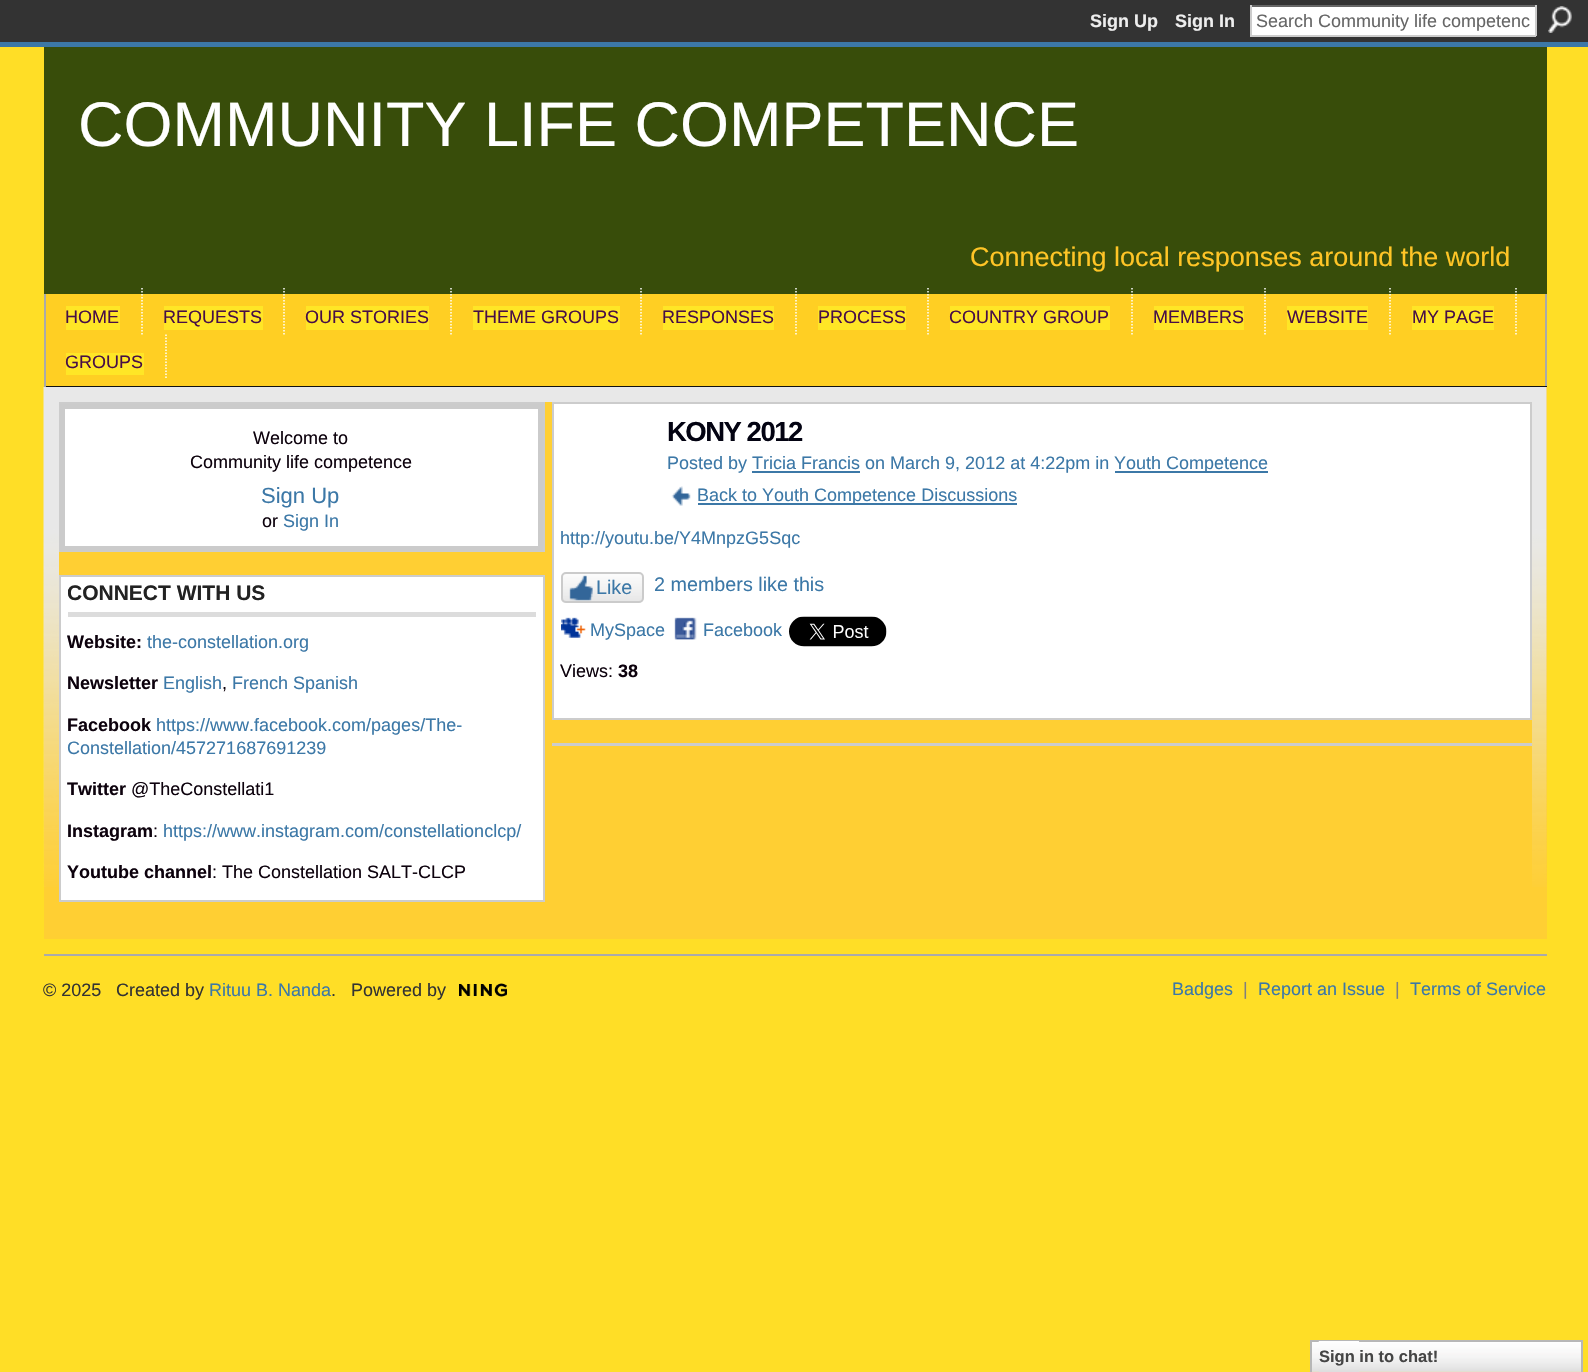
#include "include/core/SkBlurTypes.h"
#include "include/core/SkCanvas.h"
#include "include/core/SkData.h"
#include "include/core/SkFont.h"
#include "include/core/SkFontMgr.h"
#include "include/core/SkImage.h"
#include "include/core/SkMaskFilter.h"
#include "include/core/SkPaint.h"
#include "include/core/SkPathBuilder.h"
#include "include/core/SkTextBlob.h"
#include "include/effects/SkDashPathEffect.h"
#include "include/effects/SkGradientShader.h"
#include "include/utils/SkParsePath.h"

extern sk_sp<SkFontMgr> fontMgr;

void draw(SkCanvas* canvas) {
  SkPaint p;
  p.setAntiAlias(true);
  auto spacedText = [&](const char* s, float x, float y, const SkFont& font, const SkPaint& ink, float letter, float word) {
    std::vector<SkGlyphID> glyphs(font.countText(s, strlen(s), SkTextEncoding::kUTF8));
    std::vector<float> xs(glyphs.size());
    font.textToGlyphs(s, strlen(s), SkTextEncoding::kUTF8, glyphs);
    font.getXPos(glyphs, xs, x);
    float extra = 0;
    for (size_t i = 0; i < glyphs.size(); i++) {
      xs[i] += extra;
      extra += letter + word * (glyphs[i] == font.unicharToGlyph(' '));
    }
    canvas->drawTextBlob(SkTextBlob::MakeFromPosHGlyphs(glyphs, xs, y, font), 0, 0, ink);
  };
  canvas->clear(SkColorSetRGB(255, 222, 38));
  p.setColor(SkColorSetRGB(51, 51, 51));
  canvas->drawRect(SkRect::MakeLTRB(0, 0, 1588, 42), p);
  p.setColor(SK_ColorWHITE);
  canvas->drawRect(SkRect::MakeLTRB(1252, 7, 1535, 35), p);
  p.setColor(SkColorSetRGB(102, 102, 102));
  canvas->drawRect(SkRect::MakeLTRB(1250, 5, 1536, 7), p);
  p.setColor(SkColorSetRGB(204, 204, 204));
  canvas->drawRect(SkRect::MakeLTRB(1535, 5, 1537, 36), p);
  canvas->drawRect(SkRect::MakeLTRB(1250, 35, 1536, 37), p);
  canvas->drawRect(SkRect::MakeLTRB(1250, 5, 1252, 36), p);
  canvas->drawImageRect(SkImages::DeferredFromEncodedData(SkData::MakeFromFileName("images/1.png")), SkRect::MakeLTRB(1548, 6, 1572, 33), SkSamplingOptions());
  p.setColor(SkColorSetRGB(60, 120, 167));
  canvas->drawRect(SkRect::MakeLTRB(0, 42, 1588, 47), p);
  p.setColor(SkColorSetRGB(56, 77, 10));
  canvas->drawRect(SkRect::MakeLTRB(44, 47, 1547, 294), p);
  p.setColor(SkColorSetRGB(255, 207, 35));
  canvas->drawRect(SkRect::MakeLTRB(46, 294, 1545, 386), p);
  p.setColor(SkColorSetRGB(170, 170, 170));
  canvas->drawRect(SkRect::MakeLTRB(1545, 294, 1547, 387), p);
  p.setColor(SkColorSetRGB(17, 17, 17));
  canvas->drawRect(SkRect::MakeLTRB(44, 386, 1547, 387), p);
  p.setColor(SkColorSetRGB(170, 170, 170));
  canvas->drawRect(SkRect::MakeLTRB(44, 294, 46, 387), p);
  p.setStyle(SkPaint::kStroke_Style);
  p.setStrokeWidth(1.5f);
  p.setColor(SK_ColorWHITE);
  p.setPathEffect(SkDashPathEffect::Make({{1.5f, 1.5f}}, 0));
  canvas->drawPath(SkPathBuilder().moveTo(142, 288).lineTo(142, 334.5f).detach(), p);
  p.setPathEffect(nullptr);
  p.setStyle(SkPaint::kFill_Style);
  p.setColor(SkColorSetRGB(255, 230, 38));
  canvas->drawRect(SkRect::MakeLTRB(66, 306, 120, 330), p);
  p.setStyle(SkPaint::kStroke_Style);
  p.setColor(SK_ColorWHITE);
  p.setPathEffect(SkDashPathEffect::Make({{1.5f, 1.5f}}, 0));
  canvas->drawPath(SkPathBuilder().moveTo(284, 288).lineTo(284, 334.5f).detach(), p);
  p.setPathEffect(nullptr);
  p.setStyle(SkPaint::kFill_Style);
  p.setColor(SkColorSetRGB(255, 230, 38));
  canvas->drawRect(SkRect::MakeLTRB(164, 306, 263, 330), p);
  p.setStyle(SkPaint::kStroke_Style);
  p.setColor(SK_ColorWHITE);
  p.setPathEffect(SkDashPathEffect::Make({{1.5f, 1.5f}}, 0));
  canvas->drawPath(SkPathBuilder().moveTo(451, 288).lineTo(451, 334.5f).detach(), p);
  p.setPathEffect(nullptr);
  p.setStyle(SkPaint::kFill_Style);
  p.setColor(SkColorSetRGB(255, 230, 38));
  canvas->drawRect(SkRect::MakeLTRB(306, 306, 429, 330), p);
  p.setStyle(SkPaint::kStroke_Style);
  p.setColor(SK_ColorWHITE);
  p.setPathEffect(SkDashPathEffect::Make({{1.5f, 1.5f}}, 0));
  canvas->drawPath(SkPathBuilder().moveTo(641, 288).lineTo(641, 334.5f).detach(), p);
  p.setPathEffect(nullptr);
  p.setStyle(SkPaint::kFill_Style);
  p.setColor(SkColorSetRGB(255, 230, 38));
  canvas->drawRect(SkRect::MakeLTRB(473, 306, 620, 330), p);
  p.setStyle(SkPaint::kStroke_Style);
  p.setColor(SK_ColorWHITE);
  p.setPathEffect(SkDashPathEffect::Make({{1.5f, 1.5f}}, 0));
  canvas->drawPath(SkPathBuilder().moveTo(796, 288).lineTo(796, 334.5f).detach(), p);
  p.setPathEffect(nullptr);
  p.setStyle(SkPaint::kFill_Style);
  p.setColor(SkColorSetRGB(255, 230, 38));
  canvas->drawRect(SkRect::MakeLTRB(663, 306, 774, 330), p);
  p.setStyle(SkPaint::kStroke_Style);
  p.setColor(SK_ColorWHITE);
  p.setPathEffect(SkDashPathEffect::Make({{1.5f, 1.5f}}, 0));
  canvas->drawPath(SkPathBuilder().moveTo(928, 288).lineTo(928, 334.5f).detach(), p);
  p.setPathEffect(nullptr);
  p.setStyle(SkPaint::kFill_Style);
  p.setColor(SkColorSetRGB(255, 230, 38));
  canvas->drawRect(SkRect::MakeLTRB(818, 306, 906, 330), p);
  p.setStyle(SkPaint::kStroke_Style);
  p.setColor(SK_ColorWHITE);
  p.setPathEffect(SkDashPathEffect::Make({{1.5f, 1.5f}}, 0));
  canvas->drawPath(SkPathBuilder().moveTo(1132, 288).lineTo(1132, 334.5f).detach(), p);
  p.setPathEffect(nullptr);
  p.setStyle(SkPaint::kFill_Style);
  p.setColor(SkColorSetRGB(255, 230, 38));
  canvas->drawRect(SkRect::MakeLTRB(950, 306, 1110, 330), p);
  p.setStyle(SkPaint::kStroke_Style);
  p.setColor(SK_ColorWHITE);
  p.setPathEffect(SkDashPathEffect::Make({{1.5f, 1.5f}}, 0));
  canvas->drawPath(SkPathBuilder().moveTo(1265, 288).lineTo(1265, 334.5f).detach(), p);
  p.setPathEffect(nullptr);
  p.setStyle(SkPaint::kFill_Style);
  p.setColor(SkColorSetRGB(255, 230, 38));
  canvas->drawRect(SkRect::MakeLTRB(1154, 306, 1244, 330), p);
  p.setStyle(SkPaint::kStroke_Style);
  p.setColor(SK_ColorWHITE);
  p.setPathEffect(SkDashPathEffect::Make({{1.5f, 1.5f}}, 0));
  canvas->drawPath(SkPathBuilder().moveTo(1390, 288).lineTo(1390, 334.5f).detach(), p);
  p.setPathEffect(nullptr);
  p.setStyle(SkPaint::kFill_Style);
  p.setColor(SkColorSetRGB(255, 230, 38));
  canvas->drawRect(SkRect::MakeLTRB(1287, 306, 1368, 330), p);
  p.setStyle(SkPaint::kStroke_Style);
  p.setColor(SK_ColorWHITE);
  p.setPathEffect(SkDashPathEffect::Make({{1.5f, 1.5f}}, 0));
  canvas->drawPath(SkPathBuilder().moveTo(1516, 288).lineTo(1516, 334.5f).detach(), p);
  p.setPathEffect(nullptr);
  p.setStyle(SkPaint::kFill_Style);
  p.setColor(SkColorSetRGB(255, 230, 38));
  canvas->drawRect(SkRect::MakeLTRB(1412, 306, 1494, 330), p);
  p.setStyle(SkPaint::kStroke_Style);
  p.setColor(SK_ColorWHITE);
  p.setPathEffect(SkDashPathEffect::Make({{1.5f, 1.5f}}, 0));
  canvas->drawPath(SkPathBuilder().moveTo(166, 334.5f).lineTo(166, 379.5f).detach(), p);
  p.setPathEffect(nullptr);
  p.setStyle(SkPaint::kFill_Style);
  p.setColor(SkColorSetRGB(255, 230, 38));
  canvas->drawRect(SkRect::MakeLTRB(66, 353, 144, 375), p);
  p.setColor(SkColorSetRGB(255, 207, 51));
  canvas->drawRect(SkRect::MakeLTRB(44, 387, 1547, 939), p);
  canvas->drawImageRect(SkImages::DeferredFromEncodedData(SkData::MakeFromFileName("images/2.png")), SkRect::MakeLTRB(43, 387, 1547, 887), SkSamplingOptions());
  canvas->drawRect(SkRect::MakeLTRB(59, 402, 1532, 887), p);
  p.setColor(SK_ColorWHITE);
  canvas->drawRect(SkRect::MakeLTRB(65, 409, 538, 546), p);
  p.setStyle(SkPaint::kStroke_Style);
  p.setStrokeWidth(2);
  p.setColor(SkColorSetRGB(204, 204, 204));
  canvas->drawRect(SkRect::MakeLTRB(60, 403, 544, 551), p);
  p.setStrokeWidth(5);
  p.setColor(SkColorSetRGB(203, 203, 203));
  canvas->drawRect(SkRect::MakeLTRB(62.5f, 406.5f, 540.5f, 548.5f), p);
  p.setStyle(SkPaint::kFill_Style);
  p.setColor(SK_ColorWHITE);
  canvas->drawRect(SkRect::MakeLTRB(60, 576, 544, 901), p);
  p.setStyle(SkPaint::kStroke_Style);
  p.setStrokeWidth(2);
  p.setColor(SkColorSetRGB(204, 204, 204));
  canvas->drawRect(SkRect::MakeLTRB(60, 576, 544, 901), p);
  p.setStyle(SkPaint::kFill_Style);
  p.setColor(SkColorSetRGB(220, 220, 220));
  canvas->drawRect(SkRect::MakeLTRB(68, 612, 536, 617), p);
  p.setColor(SK_ColorWHITE);
  canvas->drawRect(SkRect::MakeLTRB(553, 403, 1531, 719), p);
  p.setStyle(SkPaint::kStroke_Style);
  p.setColor(SkColorSetRGB(204, 204, 204));
  canvas->drawRect(SkRect::MakeLTRB(553, 403, 1531, 719), p);
  p.setStyle(SkPaint::kFill_Style);
  p.setColor(SkColorSetRGB(60, 120, 167));
  canvas->drawRect(SkRect::MakeLTRB(1115, 471, 1268, 473), p);
  canvas->drawRect(SkRect::MakeLTRB(752, 471, 860, 473), p);
  canvas->drawImageRect(SkImages::DeferredFromEncodedData(SkData::MakeFromFileName("images/3.png")), SkRect::MakeLTRB(671, 486, 691, 506), SkSamplingOptions());
  canvas->drawRect(SkRect::MakeLTRB(698, 503, 1017, 505), p);
  canvas->drawImageRect(SkImages::DeferredFromEncodedData(SkData::MakeFromFileName("images/4.png")), SkRect::MakeLTRB(561, 574, 644, 603), SkSamplingOptions());
  p.setStyle(SkPaint::kStroke_Style);
  p.setColor(SkColorSetRGB(203, 203, 203));
  canvas->drawRoundRect(SkRect::MakeLTRB(562, 573, 643, 602), 4, 4, p);
  canvas->drawImageRect(SkImages::DeferredFromEncodedData(SkData::MakeFromFileName("images/5.png")), SkRect::MakeLTRB(569, 575, 593, 601), SkSamplingOptions());
  canvas->drawImageRect(SkImages::DeferredFromEncodedData(SkData::MakeFromFileName("images/6.png")), SkRect::MakeLTRB(561, 617, 586, 638), SkSamplingOptions());
  canvas->drawImageRect(SkImages::DeferredFromEncodedData(SkData::MakeFromFileName("images/7.png")), SkRect::MakeLTRB(674, 617, 697, 640), SkSamplingOptions());
  canvas->drawImageRect(SkImages::DeferredFromEncodedData(SkData::MakeFromFileName("images/8.png")), SkRect::MakeLTRB(789, 616, 887, 647), SkSamplingOptions());
  p.setStyle(SkPaint::kFill_Style);
  p.setColor(SkColorSetRGB(204, 204, 204));
  canvas->drawRect(SkRect::MakeLTRB(552, 743, 1532, 746), p);
  p.setColor(SkColorSetRGB(170, 170, 170));
  canvas->drawRect(SkRect::MakeLTRB(44, 954, 1547, 956), p);
  canvas->drawImageRect(SkImages::DeferredFromEncodedData(SkData::MakeFromFileName("images/9.png")), SkRect::MakeLTRB(459, 983, 507, 997), SkSamplingOptions());
  canvas->drawImageRect(SkImages::DeferredFromEncodedData(SkData::MakeFromFileName("images/10.png")), SkRect::MakeLTRB(1312, 1342, 1581, 1372), SkSamplingOptions());
  p.setStyle(SkPaint::kStroke_Style);
  p.setColor(SkColorSetRGB(183, 183, 183));
  canvas->drawRect(SkRect::MakeLTRB(1311, 1341, 1582, 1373), p);
  canvas->drawImageRect(SkImages::DeferredFromEncodedData(SkData::MakeFromFileName("images/11.png")), SkRect::MakeLTRB(1318, 1341, 1359, 1372), SkSamplingOptions());
  SkFont font1(fontMgr->matchFamilyStyle("Liberation Sans", SkFontStyle::Bold()), 18);
  font1.setSubpixel(true);
  p.setStyle(SkPaint::kFill_Style);
  p.setColor(SkColorSetRGB(238, 238, 238));
  canvas->drawString("Sign Up", 1090, 27, font1, p);
  canvas->drawString("Sign In", 1175, 27, font1, p);
  SkFont font2(fontMgr->matchFamilyStyle("Liberation Sans", SkFontStyle::Normal()), 18);
  font2.setSubpixel(true);
  p.setColor(SkColorSetRGB(102, 102, 102));
  canvas->drawString("Search Community life competenc", 1256, 27, font2, p);
  SkFont font3(fontMgr->matchFamilyStyle("Liberation Sans", SkFontStyle::Normal()), 63);
  font3.setSubpixel(true);
  p.setColor(SK_ColorWHITE);
  canvas->drawString("COMMUNITY LIFE COMPETENCE", 78, 146, font3, p);
  SkFont font4(fontMgr->matchFamilyStyle("Liberation Sans", SkFontStyle::Normal()), 27);
  font4.setSubpixel(true);
  p.setColor(SkColorSetRGB(255, 197, 38));
  canvas->drawString("Connecting local responses around the world", 970, 266, font4, p);
  p.setColor(SkColorSetRGB(71, 14, 71));
  canvas->drawString("HOME", 65, 323, font2, p);
  canvas->drawString("REQUESTS", 163, 323, font2, p);
  canvas->drawString("OUR STORIES", 305, 323, font2, p);
  canvas->drawString("THEME GROUPS", 473, 323, font2, p);
  canvas->drawString("RESPONSES", 662, 323, font2, p);
  canvas->drawString("PROCESS", 818, 323, font2, p);
  canvas->drawString("COUNTRY GROUP", 949, 323, font2, p);
  canvas->drawString("MEMBERS", 1153, 323, font2, p);
  canvas->drawString("WEBSITE", 1287, 323, font2, p);
  canvas->drawString("MY PAGE", 1412, 323, font2, p);
  canvas->drawString("GROUPS", 65, 368, font2, p);
  p.setColor(SkColorSetRGB(13, 2, 13));
  canvas->drawString("Welcome to", 253, 444, font2, p);
  canvas->drawString("Community life competence", 190, 468, font2, p);
  SkFont font5(fontMgr->matchFamilyStyle("Liberation Sans", SkFontStyle::Normal()), 22);
  font5.setSubpixel(true);
  p.setColor(SkColorSetRGB(60, 120, 167));
  canvas->drawString("Sign Up", 261, 503, font5, p);
  p.setColor(SkColorSetRGB(13, 2, 13));
  canvas->drawString("or", 262, 527, font2, p);
  p.setColor(SkColorSetRGB(60, 120, 167));
  canvas->drawString("Sign In", 283, 527, font2, p);
  canvas->save();
  canvas->clipRect(SkRect::MakeLTRB(68, 581, 266, 606));
  SkFont font6(fontMgr->matchFamilyStyle("Liberation Sans", SkFontStyle::Bold()), 21);
  font6.setSubpixel(true);
  p.setColor(SkColorSetRGB(34, 34, 34));
  canvas->drawString("CONNECT WITH US", 67, 600, font6, p);
  canvas->restore();
  p.setColor(SkColorSetRGB(13, 2, 13));
  canvas->drawString("Website:", 67, 648, font1, p);
  p.setColor(SkColorSetRGB(60, 120, 167));
  canvas->drawString("the-constellation.org", 147, 648, font2, p);
  p.setColor(SkColorSetRGB(13, 2, 13));
  canvas->drawString("Newsletter", 67, 689, font1, p);
  p.setColor(SkColorSetRGB(60, 120, 167));
  canvas->drawString("English", 163, 689, font2, p);
  p.setColor(SkColorSetRGB(13, 2, 13));
  canvas->drawString(",", 222, 689, font2, p);
  p.setColor(SkColorSetRGB(60, 120, 167));
  canvas->drawString("French Spanish", 232, 689, font2, p);
  p.setColor(SkColorSetRGB(13, 2, 13));
  canvas->drawString("Facebook", 67, 731, font1, p);
  p.setColor(SkColorSetRGB(60, 120, 167));
  canvas->drawString("https://www.facebook.com/pages/The-", 156, 731, font2, p);
  canvas->drawString("Constellation/457271687691239", 67, 754, font2, p);
  p.setColor(SkColorSetRGB(13, 2, 13));
  canvas->drawString("Twitter", 67, 795, font1, p);
  canvas->drawString("@TheConstellati1", 131, 795, font2, p);
  canvas->drawString("Instagram", 67, 837, font1, p);
  canvas->drawString(":", 153, 837, font2, p);
  p.setColor(SkColorSetRGB(60, 120, 167));
  canvas->drawString("https://www.instagram.com/constellationclcp/", 163, 837, font2, p);
  p.setColor(SkColorSetRGB(13, 2, 13));
  canvas->drawString("Youtube channel", 67, 878, font1, p);
  canvas->drawString(": The Constellation SALT-CLCP", 212, 878, font2, p);
  SkFont font7(fontMgr->matchFamilyStyle("Liberation Sans", SkFontStyle::Bold()), 27.5f);
  font7.setSubpixel(true);
  p.setColor(SkColorSetRGB(3, 3, 18));
  spacedText("KONY 2012", 667, 441, font7, p, -1.5f, 0);
  p.setColor(SkColorSetRGB(60, 120, 167));
  canvas->drawString("Posted by Tricia Francis on March 9, 2012 at 4:22pm in", 667, 469, font2, p);
  canvas->drawString("Youth Competence", 1114, 469, font2, p);
  canvas->drawString("Back to Youth Competence Discussions", 697, 501, font2, p);
  canvas->drawString("http://youtu.be/Y4MnpzG5Sqc", 560, 544, font2, p);
  SkFont font8(fontMgr->matchFamilyStyle("Liberation Sans", SkFontStyle::Normal()), 19.75f);
  font8.setSubpixel(true);
  canvas->drawString("Like", 596, 594, font8, p);
  canvas->drawString("2 members like this", 654, 591, font8, p);
  canvas->drawString("MySpace", 590, 636, font2, p);
  canvas->drawString("Facebook", 703, 636, font2, p);
  p.setColor(SkColorSetRGB(13, 2, 13));
  canvas->drawString("Views:", 560, 677, font2, p);
  canvas->drawString("38", 618, 677, font1, p);
  p.setColor(SkColorSetRGB(51, 51, 51));
  canvas->drawString("© 2025", 43, 996, font2, p);
  canvas->drawString("Created by", 116, 996, font2, p);
  p.setColor(SkColorSetRGB(60, 120, 167));
  canvas->drawString("Rituu B. Nanda", 209, 996, font2, p);
  p.setColor(SkColorSetRGB(51, 51, 51));
  canvas->drawString(".", 331, 996, font2, p);
  canvas->drawString("Powered by", 351, 996, font2, p);
  p.setColor(SkColorSetRGB(60, 120, 167));
  canvas->drawString("Badges", 1172, 995, font2, p);
  p.setColor(SkColorSetRGB(127, 127, 127));
  canvas->drawString("|", 1243, 995, font2, p);
  p.setColor(SkColorSetRGB(60, 120, 167));
  canvas->drawString("Report an Issue", 1258, 995, font2, p);
  p.setColor(SkColorSetRGB(127, 127, 127));
  canvas->drawString("|", 1395, 995, font2, p);
  p.setColor(SkColorSetRGB(60, 120, 167));
  canvas->drawString("Terms of Service", 1410, 995, font2, p);
  SkFont font9(fontMgr->matchFamilyStyle("Liberation Sans", SkFontStyle::Bold()), 16.5f);
  font9.setSubpixel(true);
  p.setColor(SkColorSetRGB(69, 69, 69));
  canvas->drawString("Sign in to chat!", 1319, 1362, font9, p);
}
